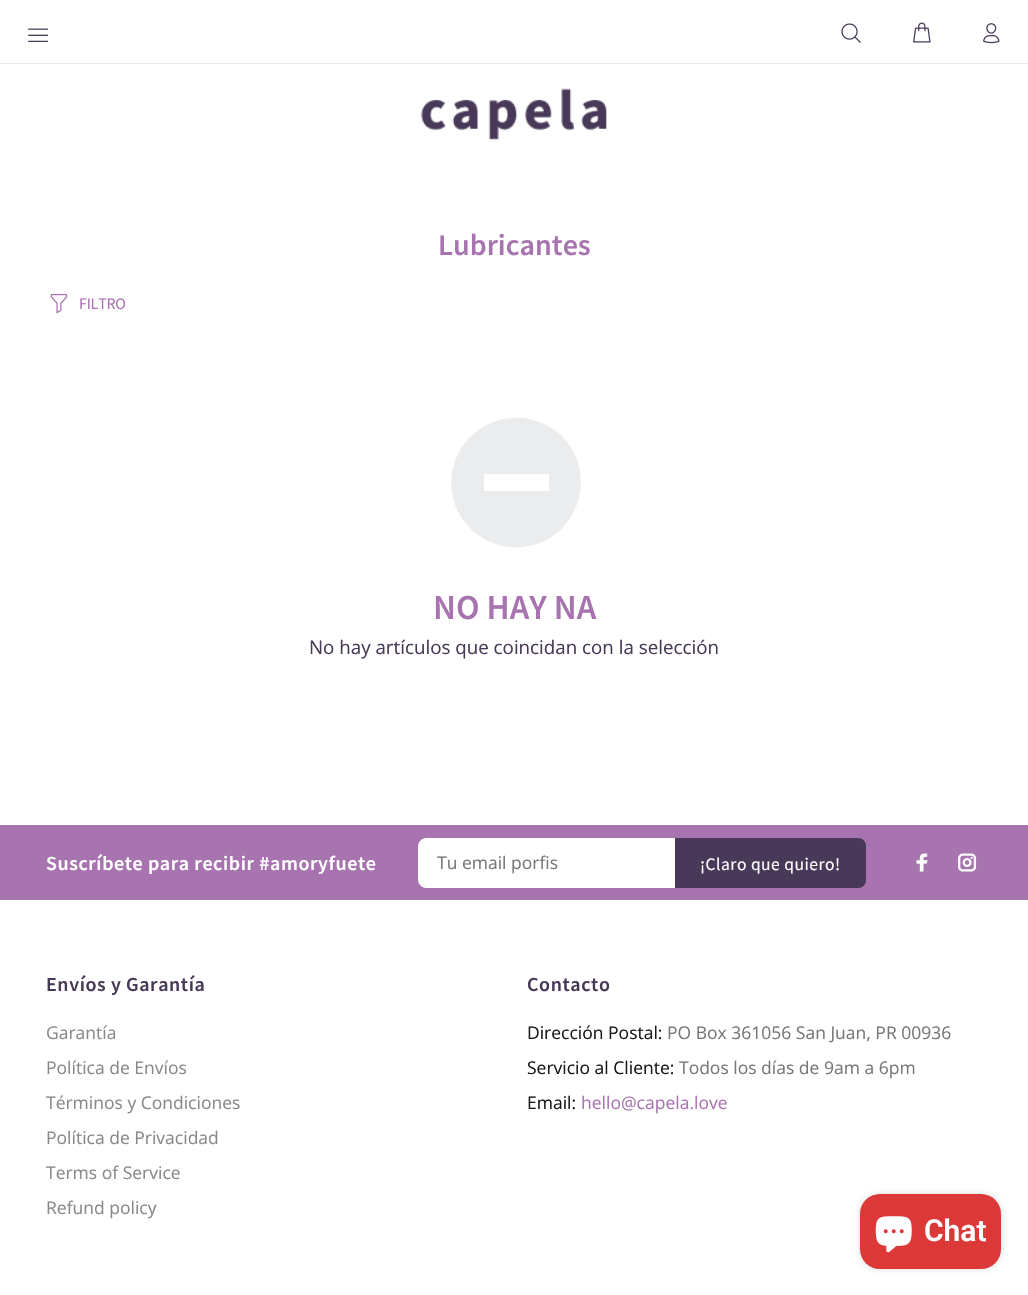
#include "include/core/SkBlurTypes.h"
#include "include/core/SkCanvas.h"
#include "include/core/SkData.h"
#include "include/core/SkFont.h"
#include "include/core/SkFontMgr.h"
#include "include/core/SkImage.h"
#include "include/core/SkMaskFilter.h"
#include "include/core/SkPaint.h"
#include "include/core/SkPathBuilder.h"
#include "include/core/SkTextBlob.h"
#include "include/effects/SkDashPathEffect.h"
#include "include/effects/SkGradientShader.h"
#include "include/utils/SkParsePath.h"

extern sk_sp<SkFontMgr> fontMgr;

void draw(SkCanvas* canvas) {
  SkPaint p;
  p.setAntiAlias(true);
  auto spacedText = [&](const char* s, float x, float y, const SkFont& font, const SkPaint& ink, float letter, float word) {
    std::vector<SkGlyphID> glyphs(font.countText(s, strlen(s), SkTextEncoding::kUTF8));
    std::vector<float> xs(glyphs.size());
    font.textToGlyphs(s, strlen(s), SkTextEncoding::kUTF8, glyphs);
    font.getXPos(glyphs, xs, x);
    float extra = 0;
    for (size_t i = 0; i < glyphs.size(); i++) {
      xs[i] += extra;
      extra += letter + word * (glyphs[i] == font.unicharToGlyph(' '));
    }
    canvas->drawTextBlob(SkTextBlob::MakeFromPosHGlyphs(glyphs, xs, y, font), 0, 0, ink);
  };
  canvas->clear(SK_ColorWHITE);
  canvas->drawImageRect(SkImages::DeferredFromEncodedData(SkData::MakeFromFileName("images/1.png")), SkRect::MakeLTRB(28, 28, 49, 42), SkSamplingOptions());
  canvas->drawImageRect(SkImages::DeferredFromEncodedData(SkData::MakeFromFileName("images/2.png")), SkRect::MakeLTRB(841, 23, 861, 43), SkSamplingOptions());
  canvas->drawImageRect(SkImages::DeferredFromEncodedData(SkData::MakeFromFileName("images/3.png")), SkRect::MakeLTRB(913, 22, 931, 43), SkSamplingOptions());
  canvas->drawImageRect(SkImages::DeferredFromEncodedData(SkData::MakeFromFileName("images/4.png")), SkRect::MakeLTRB(983, 23, 1000, 44), SkSamplingOptions());
  p.setColor(SkColorSetRGB(236, 234, 234));
  canvas->drawRect(SkRect::MakeLTRB(0, 63, 1028, 64), p);
  canvas->drawImageRect(SkImages::DeferredFromEncodedData(SkData::MakeFromFileName("images/5.png")), SkRect::MakeLTRB(421, 88, 607, 141), SkSamplingOptions());
  canvas->drawImageRect(SkImages::DeferredFromEncodedData(SkData::MakeFromFileName("images/6.png")), SkRect::MakeLTRB(50, 293, 68, 314), SkSamplingOptions());
  p.setColor(SkColorSetRGB(235, 236, 238));
  canvas->drawPath(SkPathBuilder().moveTo(542, 423).cubicTo(582, 440, 594, 491, 565, 525).cubicTo(556, 536, 542, 544, 528, 546).cubicTo(515, 549, 502, 547, 491, 542).cubicTo(478, 537, 467, 527, 460, 515).cubicTo(436, 473, 465, 420, 513, 418).cubicTo(523, 417, 532, 419, 542, 423).close().moveTo(549, 474).lineTo(484, 474).lineTo(484, 491).lineTo(549, 491).close().detach(), p);
  p.setColor(SkColorSetRGB(167, 116, 175));
  canvas->drawRect(SkRect::MakeLTRB(0, 825, 1028, 900), p);
  p.setColor(SK_ColorWHITE);
  canvas->drawPath(SkPathBuilder().moveTo(426, 838.5f).lineTo(674.5f, 838.5f).lineTo(674.5f, 887.5f).lineTo(426, 887.5f).cubicTo(422, 887.5f, 418.5f, 884, 418.5f, 880).lineTo(418.5f, 846).cubicTo(418.5f, 842, 422, 838.5f, 426, 838.5f).close().detach(), p);
  p.setStyle(SkPaint::kStroke_Style);
  p.setStrokeWidth(1);
  canvas->drawPath(SkPathBuilder().moveTo(426, 838.5f).lineTo(674.5f, 838.5f).lineTo(674.5f, 887.5f).lineTo(426, 887.5f).cubicTo(422, 887.5f, 418.5f, 884, 418.5f, 880).lineTo(418.5f, 846).cubicTo(418.5f, 842, 422, 838.5f, 426, 838.5f).close().detach(), p);
  p.setStyle(SkPaint::kFill_Style);
  p.setColor(SkColorSetRGB(72, 57, 88));
  canvas->drawPath(SkPathBuilder().moveTo(675, 838).lineTo(858, 838).cubicTo(862.5f, 838, 866, 841.5f, 866, 846).lineTo(866, 880).cubicTo(866, 884.5f, 862.5f, 888, 858, 888).lineTo(675, 888).close().detach(), p);
  canvas->drawImageRect(SkImages::DeferredFromEncodedData(SkData::MakeFromFileName("images/7.png")), SkRect::MakeLTRB(916, 853, 928, 872), SkSamplingOptions());
  canvas->drawImageRect(SkImages::DeferredFromEncodedData(SkData::MakeFromFileName("images/8.png")), SkRect::MakeLTRB(958, 853, 977, 872), SkSamplingOptions());
  p.setColor(SkColorSetARGB(38, 0, 0, 0));
  p.setMaskFilter(SkMaskFilter::MakeBlur(kNormal_SkBlurStyle, 3));
  canvas->drawRoundRect(SkRect::MakeLTRB(860, 1194, 1001, 1269), 20, 20, p);
  p.setMaskFilter(nullptr);
  p.setColor(SkColorSetRGB(220, 56, 56));
  canvas->drawRoundRect(SkRect::MakeLTRB(860, 1194, 1001, 1269), 20, 20, p);
  canvas->drawImageRect(SkImages::DeferredFromEncodedData(SkData::MakeFromFileName("images/9.png")), SkRect::MakeLTRB(875, 1216, 912, 1253), SkSamplingOptions());
  SkFont font1(fontMgr->matchFamilyStyle("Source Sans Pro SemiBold", SkFontStyle(600, SkFontStyle::kNormal_Width, SkFontStyle::kUpright_Slant)), 30);
  font1.setSubpixel(true);
  p.setColor(SkColorSetRGB(167, 116, 175));
  canvas->drawString("Lubricantes", 438, 255, font1, p);
  SkFont font2(fontMgr->matchFamilyStyle("Source Sans Pro", SkFontStyle::Normal()), 16);
  font2.setSubpixel(true);
  spacedText("FILTRO", 79, 309, font2, p, -0.25f, 0);
  SkFont font3(fontMgr->matchFamilyStyle("Source Sans Pro SemiBold", SkFontStyle(600, SkFontStyle::kNormal_Width, SkFontStyle::kUpright_Slant)), 35);
  font3.setSubpixel(true);
  canvas->drawString("NO HAY NA", 433, 619, font3, p);
  SkFont font4(fontMgr->matchFamilyStyle("Open Sans", SkFontStyle::Normal()), 18.75f);
  font4.setSubpixel(true);
  p.setColor(SkColorSetRGB(72, 57, 87));
  canvas->drawString("No hay artículos que coincidan con la selección", 309, 654, font4, p);
  SkFont font5(fontMgr->matchFamilyStyle("Source Sans Pro SemiBold", SkFontStyle(600, SkFontStyle::kNormal_Width, SkFontStyle::kUpright_Slant)), 20);
  font5.setSubpixel(true);
  p.setColor(SK_ColorWHITE);
  spacedText("Suscríbete para recibir #amoryfuete", 46, 870, font5, p, 0.6f, 0);
  SkFont font6(fontMgr->matchFamilyStyle("Open Sans", SkFontStyle::Normal()), 17.5f);
  font6.setSubpixel(true);
  p.setColor(SkColorSetRGB(119, 119, 119));
  canvas->drawString("Tu email porfis", 437, 869, font6, p);
  SkFont font7(fontMgr->matchFamilyStyle("Source Sans Pro", SkFontStyle::Normal()), 17.5f);
  font7.setSubpixel(true);
  p.setColor(SK_ColorWHITE);
  spacedText("¡Claro que quiero!", 700, 870, font7, p, 0.5f, 0);
  p.setColor(SkColorSetRGB(72, 57, 87));
  spacedText("Envíos y Garantía", 46, 991, font5, p, 0.6f, 0);
  p.setColor(SkColorSetRGB(136, 136, 136));
  canvas->drawString("Garantía", 46, 1039, font6, p);
  canvas->drawString("Política de Envíos", 46, 1074, font6, p);
  canvas->drawString("Términos y Condiciones", 46, 1109, font6, p);
  canvas->drawString("Política de Privacidad", 46, 1144, font6, p);
  canvas->drawString("Terms of Service", 46, 1179, font6, p);
  canvas->drawString("Refund policy", 46, 1214, font6, p);
  p.setColor(SkColorSetRGB(72, 57, 87));
  spacedText("Contacto", 527, 991, font5, p, 0.6f, 0);
  p.setColor(SkColorSetRGB(25, 25, 25));
  canvas->drawString("Dirección Postal:", 527, 1039, font6, p);
  p.setColor(SkColorSetRGB(119, 119, 119));
  canvas->drawString("PO Box 361056 San Juan, PR 00936", 667, 1039, font6, p);
  p.setColor(SkColorSetRGB(25, 25, 25));
  canvas->drawString("Servicio al Cliente:", 527, 1074, font6, p);
  p.setColor(SkColorSetRGB(119, 119, 119));
  canvas->drawString("Todos los días de 9am a 6pm", 679, 1074, font6, p);
  p.setColor(SkColorSetRGB(25, 25, 25));
  canvas->drawString("Email:", 527, 1109, font6, p);
  p.setColor(SkColorSetRGB(167, 116, 175));
  canvas->drawString("hello@capela.love", 581, 1109, font6, p);
  SkFont font8(fontMgr->matchFamilyStyle("Roboto", SkFontStyle(600, SkFontStyle::kNormal_Width, SkFontStyle::kUpright_Slant)), 30);
  font8.setSubpixel(true);
  p.setColor(SK_ColorWHITE);
  canvas->drawString("Chat", 924, 1241, font8, p);
}
